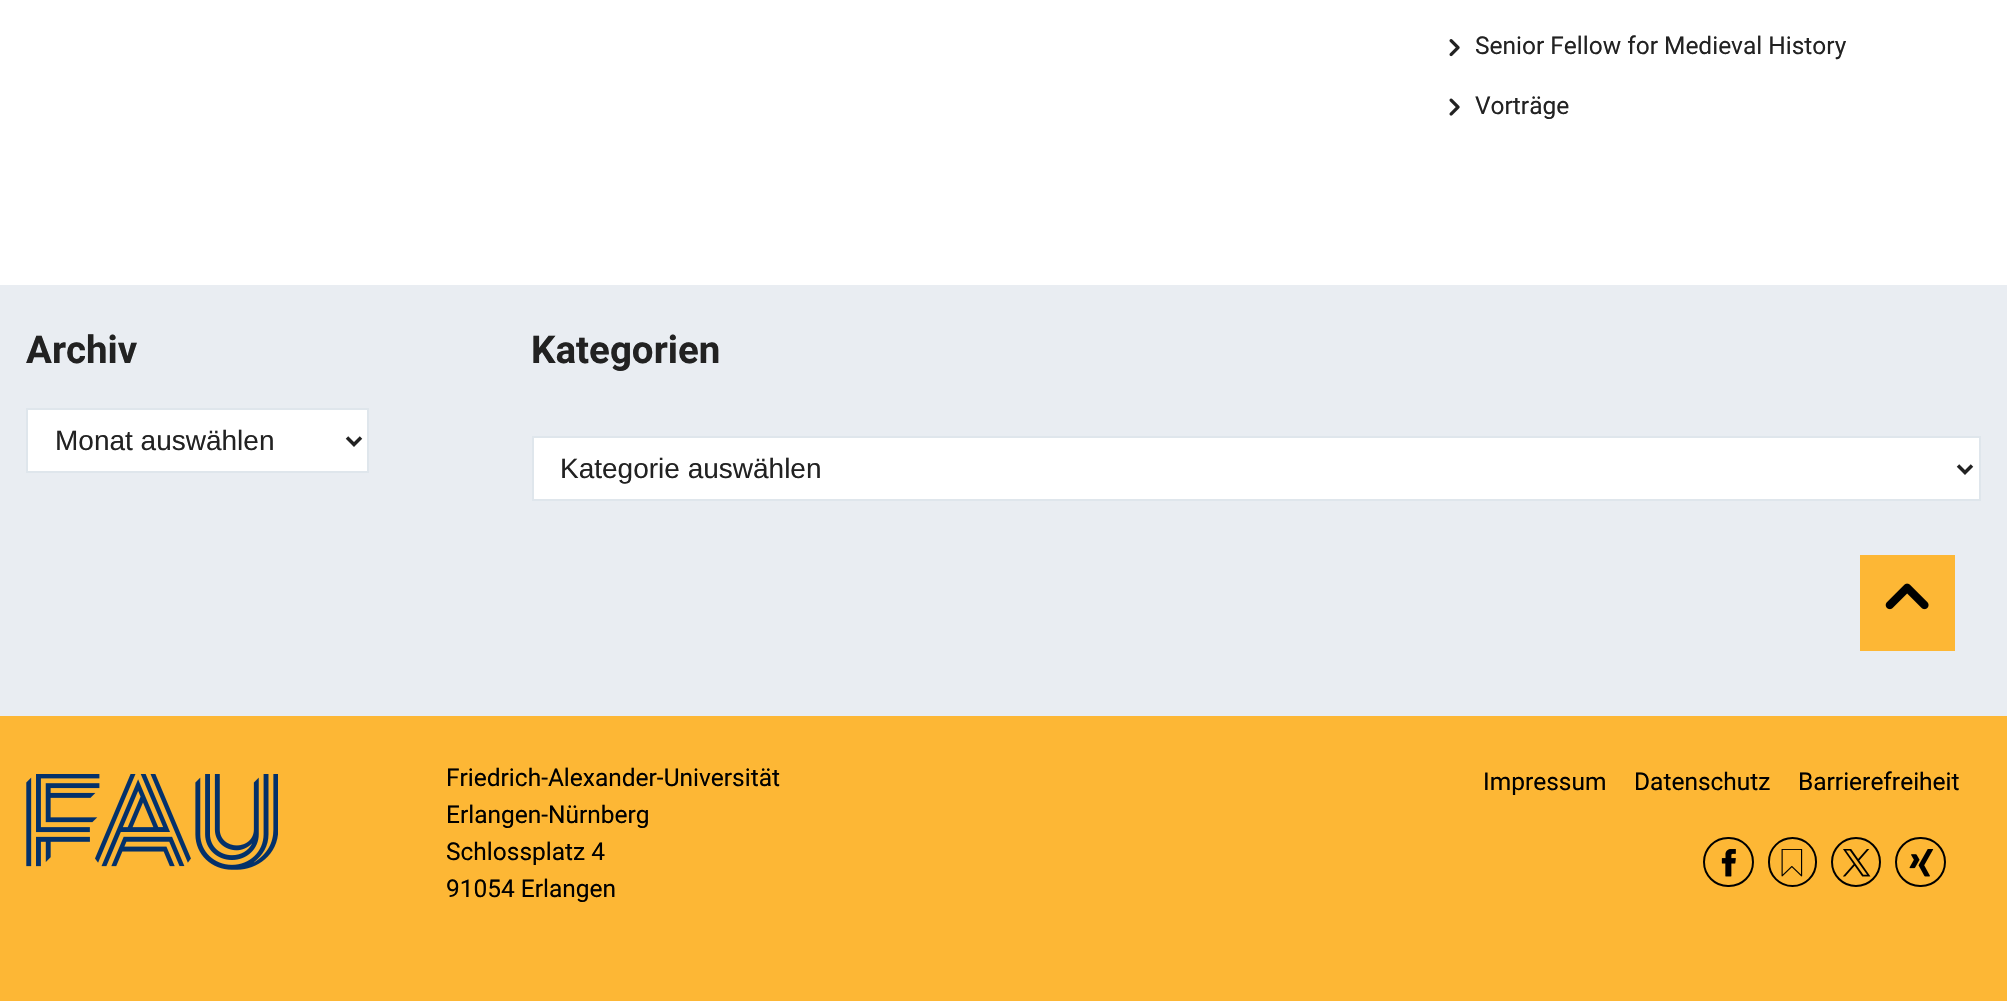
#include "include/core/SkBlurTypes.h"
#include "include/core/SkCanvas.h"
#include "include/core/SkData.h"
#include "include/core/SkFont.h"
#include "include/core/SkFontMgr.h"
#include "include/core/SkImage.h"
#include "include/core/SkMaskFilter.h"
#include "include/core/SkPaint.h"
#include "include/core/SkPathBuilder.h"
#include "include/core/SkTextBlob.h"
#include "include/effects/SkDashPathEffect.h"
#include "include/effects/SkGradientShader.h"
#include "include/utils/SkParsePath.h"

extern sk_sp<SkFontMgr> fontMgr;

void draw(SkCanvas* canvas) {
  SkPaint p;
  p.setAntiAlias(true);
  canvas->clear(SK_ColorWHITE);
  canvas->drawImageRect(SkImages::DeferredFromEncodedData(SkData::MakeFromFileName("images/1.png")), SkRect::MakeLTRB(1449, 39, 1460, 57), SkSamplingOptions());
  canvas->drawImageRect(SkImages::DeferredFromEncodedData(SkData::MakeFromFileName("images/2.png")), SkRect::MakeLTRB(1449, 98, 1460, 116), SkSamplingOptions());
  p.setColor(SkColorSetRGB(233, 237, 242));
  canvas->drawRect(SkRect::MakeLTRB(0, 285, 2007, 716), p);
  p.setColor(SK_ColorWHITE);
  canvas->drawRect(SkRect::MakeLTRB(27, 409, 368, 472), p);
  p.setStyle(SkPaint::kStroke_Style);
  p.setStrokeWidth(2);
  p.setColor(SkColorSetRGB(223, 230, 236));
  canvas->drawRect(SkRect::MakeLTRB(27, 409, 368, 472), p);
  p.setStrokeWidth(3.5f);
  p.setColor(SkColorSetRGB(34, 34, 34));
  canvas->drawPath(SkPathBuilder().moveTo(347, 437.5f).lineTo(354, 444.5f).lineTo(361, 437.5f).detach(), p);
  p.setStyle(SkPaint::kFill_Style);
  p.setColor(SK_ColorWHITE);
  canvas->drawRect(SkRect::MakeLTRB(533, 437, 1980, 500), p);
  p.setStyle(SkPaint::kStroke_Style);
  p.setStrokeWidth(2);
  p.setColor(SkColorSetRGB(223, 230, 236));
  canvas->drawRect(SkRect::MakeLTRB(533, 437, 1980, 500), p);
  p.setStrokeWidth(3.5f);
  p.setColor(SkColorSetRGB(34, 34, 34));
  canvas->drawPath(SkPathBuilder().moveTo(1958, 465.5f).lineTo(1965, 472.5f).lineTo(1972, 465.5f).detach(), p);
  p.setStyle(SkPaint::kFill_Style);
  p.setColor(SkColorSetRGB(253, 183, 53));
  canvas->drawRect(SkRect::MakeLTRB(0, 716, 2007, 1001), p);
  canvas->drawRect(SkRect::MakeLTRB(1860, 555, 1955, 651), p);
  canvas->drawImageRect(SkImages::DeferredFromEncodedData(SkData::MakeFromFileName("images/3.png")), SkRect::MakeLTRB(1885, 583, 1929, 610), SkSamplingOptions());
  canvas->drawImageRect(SkImages::DeferredFromEncodedData(SkData::MakeFromFileName("images/4.png")), SkRect::MakeLTRB(26, 774, 278, 870), SkSamplingOptions());
  p.setStyle(SkPaint::kStroke_Style);
  p.setStrokeWidth(2);
  p.setColor(SK_ColorBLACK);
  canvas->drawRoundRect(SkRect::MakeLTRB(1704, 838, 1753, 886), 24, 24, p);
  canvas->drawImageRect(SkImages::DeferredFromEncodedData(SkData::MakeFromFileName("images/5.png")), SkRect::MakeLTRB(1721, 849, 1736, 877), SkSamplingOptions());
  canvas->drawRoundRect(SkRect::MakeLTRB(1769, 838, 1816, 886), 23.5f, 23.5f, p);
  canvas->drawImageRect(SkImages::DeferredFromEncodedData(SkData::MakeFromFileName("images/6.png")), SkRect::MakeLTRB(1781, 849, 1803, 877), SkSamplingOptions());
  canvas->drawCircle(1856, 862, 24, p);
  canvas->drawImageRect(SkImages::DeferredFromEncodedData(SkData::MakeFromFileName("images/7.png")), SkRect::MakeLTRB(1843, 849, 1871, 877), SkSamplingOptions());
  canvas->drawRoundRect(SkRect::MakeLTRB(1896, 838, 1945, 886), 24, 24, p);
  canvas->drawImageRect(SkImages::DeferredFromEncodedData(SkData::MakeFromFileName("images/8.png")), SkRect::MakeLTRB(1909, 849, 1934, 877), SkSamplingOptions());
  SkFont font1(fontMgr->matchFamilyStyle("Roboto", SkFontStyle::Normal()), 24.5f);
  font1.setSubpixel(true);
  p.setStyle(SkPaint::kFill_Style);
  p.setColor(SkColorSetRGB(34, 34, 34));
  canvas->drawString("Senior Fellow for Medieval History", 1475, 54, font1, p);
  canvas->drawString("Vorträge", 1475, 114, font1, p);
  SkFont font2(fontMgr->matchFamilyStyle("Roboto", SkFontStyle::Bold()), 38.5f);
  font2.setSubpixel(true);
  canvas->drawString("Archiv", 26, 363, font2, p);
  SkFont font3(fontMgr->matchFamilyStyle("Liberation Sans", SkFontStyle::Normal()), 28);
  font3.setSubpixel(true);
  canvas->drawString("Monat auswählen", 55, 450, font3, p);
  canvas->drawString("Kategorien", 531, 363, font2, p);
  canvas->drawString("Kategorie auswählen", 560, 478, font3, p);
  p.setColor(SK_ColorBLACK);
  canvas->drawString("Friedrich-Alexander-Universität", 446, 786, font1, p);
  canvas->drawString("Erlangen-Nürnberg", 446, 823, font1, p);
  canvas->drawString("Schlossplatz 4", 446, 860, font1, p);
  canvas->drawString("91054 Erlangen", 446, 897, font1, p);
  canvas->drawString("Impressum", 1483, 790, font1, p);
  canvas->drawString("Datenschutz", 1634, 790, font1, p);
  canvas->drawString("Barrierefreiheit", 1798, 790, font1, p);
}
